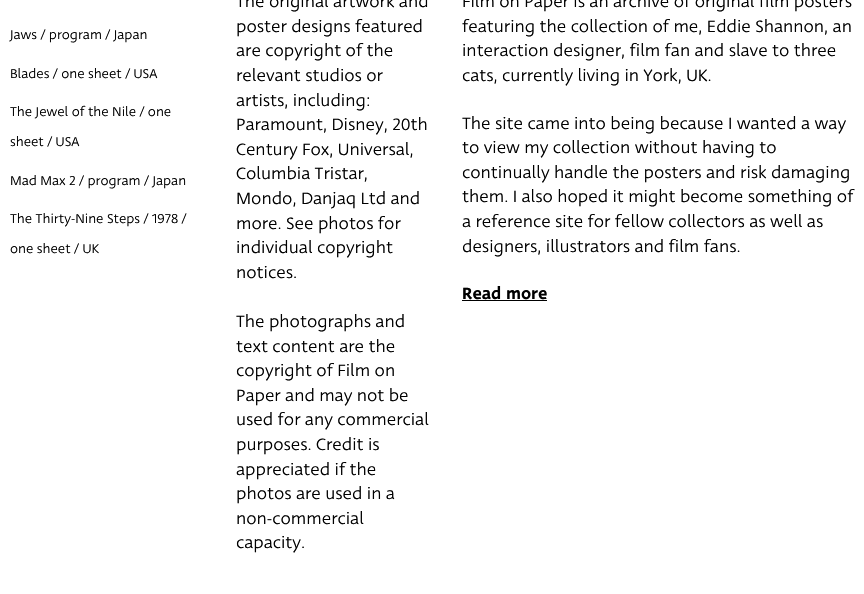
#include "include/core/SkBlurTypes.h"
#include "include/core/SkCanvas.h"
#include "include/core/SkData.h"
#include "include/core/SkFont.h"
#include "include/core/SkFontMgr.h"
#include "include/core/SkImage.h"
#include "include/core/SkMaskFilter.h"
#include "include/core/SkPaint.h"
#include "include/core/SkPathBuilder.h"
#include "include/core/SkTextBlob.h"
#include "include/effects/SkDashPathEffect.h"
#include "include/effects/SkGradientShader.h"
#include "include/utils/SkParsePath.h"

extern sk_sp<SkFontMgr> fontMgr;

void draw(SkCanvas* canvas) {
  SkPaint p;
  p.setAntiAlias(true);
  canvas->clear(SK_ColorWHITE);
  p.setColor(SK_ColorBLACK);
  canvas->drawRect(SkRect::MakeLTRB(462, 300, 547, 301), p);
  SkFont font1(fontMgr->matchFamilyStyle("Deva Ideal", SkFontStyle::Normal()), 14);
  font1.setSubpixel(true);
  canvas->drawString("Jaws / program / Japan", 10, 39, font1, p);
  canvas->drawString("Blades / one sheet / USA", 10, 78, font1, p);
  canvas->drawString("The Jewel of the Nile / one", 10, 116, font1, p);
  canvas->drawString("sheet / USA", 10, 146, font1, p);
  canvas->drawString("Mad Max 2 / program / Japan", 10, 185, font1, p);
  canvas->drawString("The Thirty-Nine Steps / 1978 /", 10, 223, font1, p);
  canvas->drawString("one sheet / UK", 10, 253, font1, p);
  SkFont font2(fontMgr->matchFamilyStyle("Deva Ideal", SkFontStyle::Normal()), 18);
  font2.setSubpixel(true);
  canvas->drawString("The original artwork and", 236, 7, font2, p);
  canvas->drawString("poster designs featured", 236, 32, font2, p);
  canvas->drawString("are copyright of the", 236, 56, font2, p);
  canvas->drawString("relevant studios or", 236, 81, font2, p);
  canvas->drawString("artists, including:", 236, 106, font2, p);
  canvas->drawString("Paramount, Disney, 20th", 236, 130, font2, p);
  canvas->drawString("Century Fox, Universal,", 236, 155, font2, p);
  canvas->drawString("Columbia Tristar,", 236, 179, font2, p);
  canvas->drawString("Mondo, Danjaq Ltd and", 236, 204, font2, p);
  canvas->drawString("more. See photos for", 236, 229, font2, p);
  canvas->drawString("individual copyright", 236, 253, font2, p);
  canvas->drawString("notices.", 236, 278, font2, p);
  canvas->drawString("The photographs and", 236, 327, font2, p);
  canvas->drawString("text content are the", 236, 352, font2, p);
  canvas->drawString("copyright of Film on", 236, 376, font2, p);
  canvas->drawString("Paper and may not be", 236, 401, font2, p);
  canvas->drawString("used for any commercial", 236, 425, font2, p);
  canvas->drawString("purposes. Credit is", 236, 450, font2, p);
  canvas->drawString("appreciated if the", 236, 475, font2, p);
  canvas->drawString("photos are used in a", 236, 499, font2, p);
  canvas->drawString("non-commercial", 236, 524, font2, p);
  canvas->drawString("capacity.", 236, 548, font2, p);
  canvas->drawString("Film on Paper is an archive of original film posters", 462, 7, font2, p);
  canvas->drawString("featuring the collection of me, Eddie Shannon, an", 462, 32, font2, p);
  canvas->drawString("interaction designer, film fan and slave to three", 462, 56, font2, p);
  canvas->drawString("cats, currently living in York, UK.", 462, 81, font2, p);
  canvas->drawString("The site came into being because I wanted a way", 462, 129, font2, p);
  canvas->drawString("to view my collection without having to", 462, 153, font2, p);
  canvas->drawString("continually handle the posters and risk damaging", 462, 178, font2, p);
  canvas->drawString("them. I also hoped it might become something of", 462, 202, font2, p);
  canvas->drawString("a reference site for fellow collectors as well as", 462, 227, font2, p);
  canvas->drawString("designers, illustrators and film fans.", 462, 252, font2, p);
  SkFont font3(fontMgr->matchFamilyStyle("Deva Ideal", SkFontStyle(500, SkFontStyle::kNormal_Width, SkFontStyle::kUpright_Slant)), 18);
  font3.setSubpixel(true);
  canvas->drawString("Read more", 462, 299, font3, p);
}
